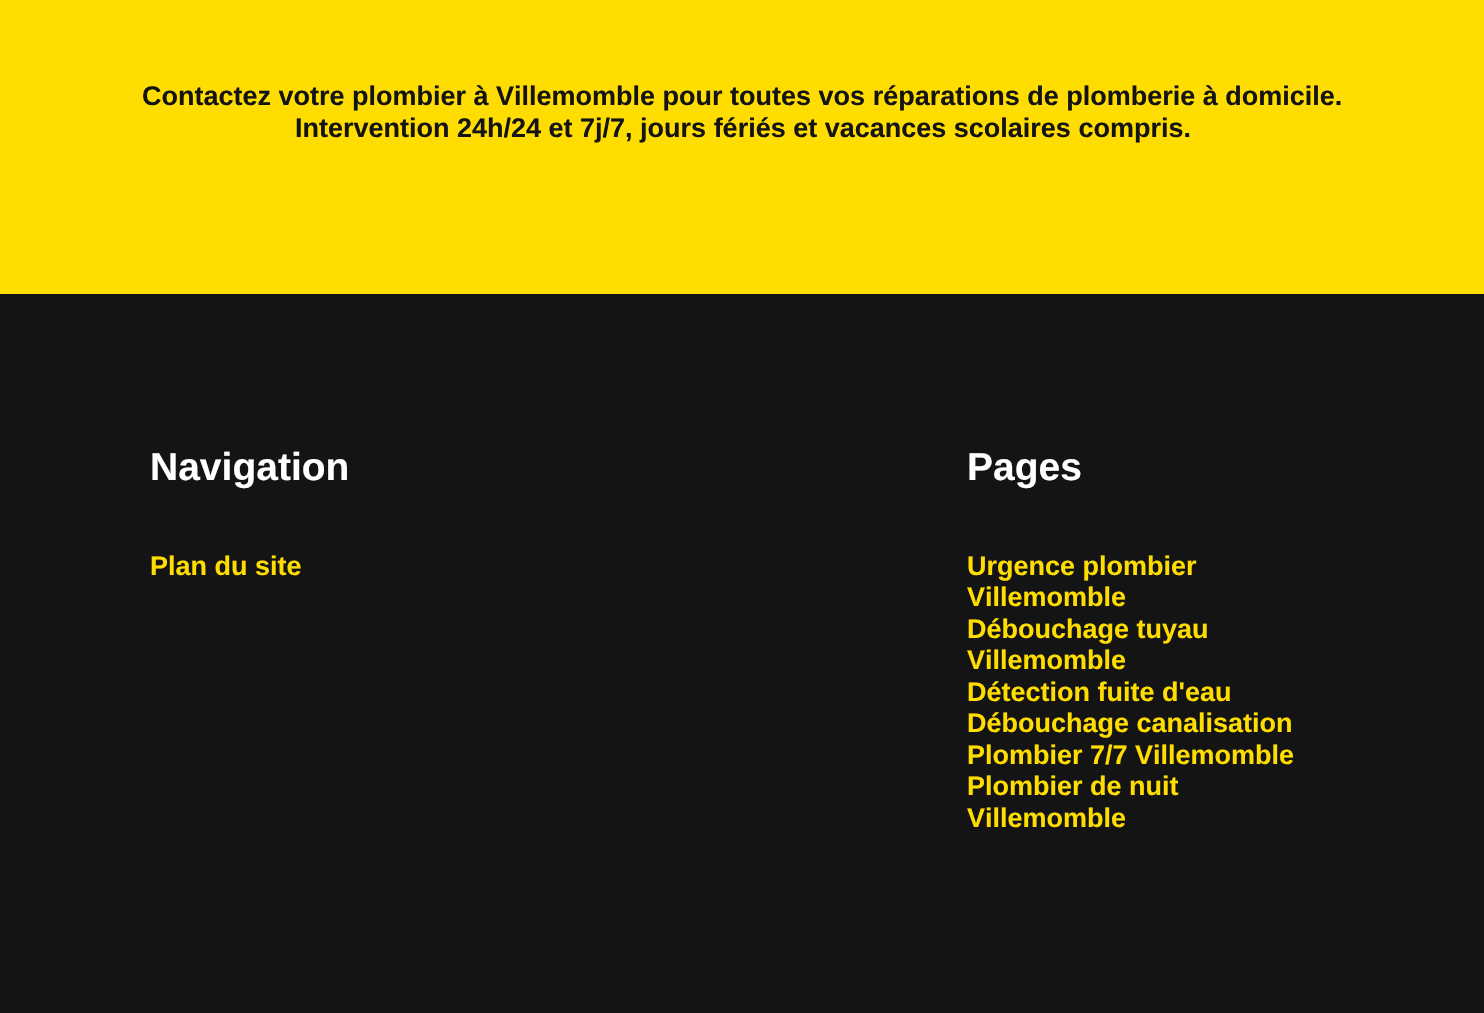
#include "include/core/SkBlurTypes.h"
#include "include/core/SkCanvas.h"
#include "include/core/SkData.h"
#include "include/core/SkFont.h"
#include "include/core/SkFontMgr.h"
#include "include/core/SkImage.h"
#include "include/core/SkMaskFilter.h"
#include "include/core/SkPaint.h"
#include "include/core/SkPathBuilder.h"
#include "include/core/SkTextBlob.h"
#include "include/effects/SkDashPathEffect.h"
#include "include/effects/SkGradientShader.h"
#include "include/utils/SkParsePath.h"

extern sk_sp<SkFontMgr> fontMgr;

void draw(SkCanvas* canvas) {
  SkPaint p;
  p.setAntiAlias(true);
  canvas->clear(SkColorSetRGB(20, 20, 20));
  p.setColor(SkColorSetRGB(255, 221, 0));
  canvas->drawRect(SkRect::MakeLTRB(0, 0, 1484, 294), p);
  SkFont font1(fontMgr->matchFamilyStyle("Liberation Sans", SkFontStyle::Bold()), 27);
  font1.setSubpixel(true);
  p.setColor(SkColorSetRGB(20, 20, 20));
  canvas->drawString("Contactez votre plombier à Villemomble pour toutes vos réparations de plomberie à domicile.", 142, 105, font1, p);
  canvas->drawString("Intervention 24h/24 et 7j/7, jours fériés et vacances scolaires compris.", 295, 137, font1, p);
  SkFont font2(fontMgr->matchFamilyStyle("Liberation Sans", SkFontStyle::Bold()), 39);
  font2.setSubpixel(true);
  p.setColor(SK_ColorWHITE);
  canvas->drawString("Navigation", 150, 480, font2, p);
  p.setColor(SkColorSetRGB(255, 221, 0));
  canvas->drawString("Plan du site", 150, 575, font1, p);
  p.setColor(SK_ColorWHITE);
  canvas->drawString("Pages", 967, 480, font2, p);
  p.setColor(SkColorSetRGB(255, 221, 0));
  canvas->drawString("Urgence plombier", 967, 575, font1, p);
  canvas->drawString("Villemomble", 967, 606, font1, p);
  canvas->drawString("Débouchage tuyau", 967, 638, font1, p);
  canvas->drawString("Villemomble", 967, 669, font1, p);
  canvas->drawString("Détection fuite d'eau", 967, 701, font1, p);
  canvas->drawString("Débouchage canalisation", 967, 732, font1, p);
  canvas->drawString("Plombier 7/7 Villemomble", 967, 764, font1, p);
  canvas->drawString("Plombier de nuit", 967, 795, font1, p);
  canvas->drawString("Villemomble", 967, 827, font1, p);
}
